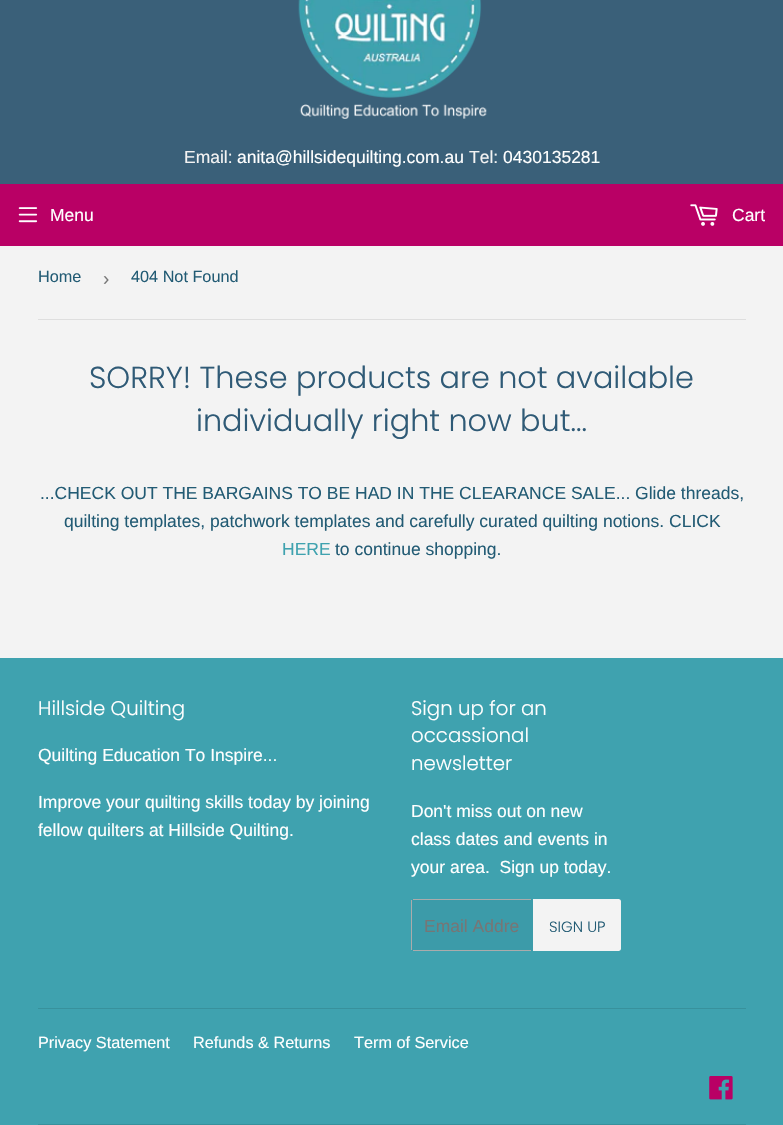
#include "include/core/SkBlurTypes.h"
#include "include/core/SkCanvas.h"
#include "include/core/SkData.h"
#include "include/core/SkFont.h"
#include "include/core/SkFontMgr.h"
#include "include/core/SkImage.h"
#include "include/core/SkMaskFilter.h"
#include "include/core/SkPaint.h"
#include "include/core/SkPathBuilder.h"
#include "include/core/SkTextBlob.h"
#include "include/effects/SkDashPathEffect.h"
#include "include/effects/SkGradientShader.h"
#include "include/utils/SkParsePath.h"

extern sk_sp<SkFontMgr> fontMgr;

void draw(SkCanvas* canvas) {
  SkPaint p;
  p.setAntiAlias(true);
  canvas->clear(SkColorSetRGB(243, 243, 243));
  p.setColor(SkColorSetRGB(58, 96, 121));
  canvas->drawRect(SkRect::MakeLTRB(0, 0, 783, 184), p);
  canvas->drawImageRect(SkImages::DeferredFromEncodedData(SkData::MakeFromFileName("images/1.png")), SkRect::MakeLTRB(298, 0, 487, 119), SkSamplingOptions());
  p.setColor(SkColorSetRGB(185, 0, 101));
  canvas->drawRect(SkRect::MakeLTRB(0, 184, 783, 246), p);
  canvas->drawImageRect(SkImages::DeferredFromEncodedData(SkData::MakeFromFileName("images/2.png")), SkRect::MakeLTRB(18, 207, 38, 223), SkSamplingOptions());
  canvas->drawImageRect(SkImages::DeferredFromEncodedData(SkData::MakeFromFileName("images/3.png")), SkRect::MakeLTRB(690, 204, 718, 226), SkSamplingOptions());
  p.setColor(SkColorSetRGB(222, 222, 222));
  canvas->drawRect(SkRect::MakeLTRB(38, 319, 746, 320), p);
  p.setColor(SkColorSetRGB(63, 162, 175));
  canvas->drawRect(SkRect::MakeLTRB(0, 658, 783, 1125), p);
  p.setColor(SkColorSetRGB(60, 155, 169));
  canvas->drawRoundRect(SkRect::MakeLTRB(411, 899, 533, 951), 2.5f, 2.5f, p);
  p.setColor(SkColorSetRGB(171, 171, 171));
  canvas->drawRect(SkRect::MakeLTRB(413, 899, 531, 900), p);
  canvas->drawRect(SkRect::MakeLTRB(413, 950, 531, 951), p);
  canvas->drawRect(SkRect::MakeLTRB(411, 900, 412, 950), p);
  p.setColor(SkColorSetRGB(243, 243, 243));
  canvas->drawPath(SkPathBuilder().moveTo(533, 899).lineTo(618.5f, 899).cubicTo(620, 899, 621, 900, 621, 901.5f).lineTo(621, 948.5f).cubicTo(621, 950, 620, 951, 618.5f, 951).lineTo(533, 951).close().detach(), p);
  p.setColor(SkColorSetRGB(56, 145, 156));
  canvas->drawRect(SkRect::MakeLTRB(38, 1008, 746, 1009), p);
  canvas->drawImageRect(SkImages::DeferredFromEncodedData(SkData::MakeFromFileName("images/4.png")), SkRect::MakeLTRB(709, 1076, 733, 1100), SkSamplingOptions());
  canvas->drawRect(SkRect::MakeLTRB(38, 1124, 746, 1125), p);
  SkFont font1(fontMgr->matchFamilyStyle("Liberation Sans", SkFontStyle::Normal()), 17.5f);
  font1.setSubpixel(true);
  p.setColor(SkColorSetRGB(243, 243, 243));
  canvas->drawString("Email:", 184, 163, font1, p);
  p.setColor(SK_ColorWHITE);
  canvas->drawString("anita@hillsidequilting.com.au", 237, 163, font1, p);
  p.setColor(SkColorSetRGB(243, 243, 243));
  canvas->drawString("Tel:", 469, 163, font1, p);
  p.setColor(SK_ColorWHITE);
  canvas->drawString("0430135281", 503, 163, font1, p);
  canvas->drawString("Menu", 50, 221, font1, p);
  canvas->drawString("Cart", 732, 221, font1, p);
  SkFont font2(fontMgr->matchFamilyStyle("Liberation Sans", SkFontStyle::Normal()), 16.25f);
  font2.setSubpixel(true);
  p.setColor(SkColorSetRGB(34, 91, 116));
  canvas->drawString("Home", 38, 282, font2, p);
  SkFont font3(fontMgr->matchFamilyStyle("Liberation Sans", SkFontStyle::Normal()), 19);
  font3.setSubpixel(true);
  p.setColor(SkColorSetRGB(118, 118, 118));
  canvas->drawString("›", 103, 285, font3, p);
  p.setColor(SkColorSetRGB(34, 91, 116));
  canvas->drawString("404 Not Found", 131, 282, font2, p);
  SkFont font4(fontMgr->matchFamilyStyle("Poppins", SkFontStyle(300, SkFontStyle::kNormal_Width, SkFontStyle::kUpright_Slant)), 30.3f);
  font4.setSubpixel(true);
  p.setColor(SkColorSetRGB(47, 90, 118));
  canvas->drawString("SORRY! These products are not available", 89, 388, font4, p);
  canvas->drawString("individually right now but...", 196, 431, font4, p);
  p.setColor(SkColorSetRGB(34, 91, 116));
  canvas->drawString("...CHECK OUT THE BARGAINS TO BE HAD IN THE CLEARANCE SALE... Glide threads,", 40, 499, font1, p);
  canvas->drawString("quilting templates, patchwork templates and carefully curated quilting notions. CLICK", 64, 527, font1, p);
  p.setColor(SkColorSetRGB(63, 162, 175));
  canvas->drawString("HERE", 282, 555, font1, p);
  p.setColor(SkColorSetRGB(34, 91, 116));
  canvas->drawString("to continue shopping.", 335, 555, font1, p);
  SkFont font5(fontMgr->matchFamilyStyle("Poppins", SkFontStyle(300, SkFontStyle::kNormal_Width, SkFontStyle::kUpright_Slant)), 19.75f);
  font5.setSubpixel(true);
  p.setColor(SK_ColorWHITE);
  canvas->drawString("Hillside Quilting", 38, 715, font5, p);
  canvas->drawString("Quilting Education To Inspire...", 38, 761, font1, p);
  canvas->drawString("Improve your quilting skills today by joining", 38, 808, font1, p);
  canvas->drawString("fellow quilters at Hillside Quilting.", 38, 836, font1, p);
  canvas->drawString("Sign up for an", 411, 715, font5, p);
  canvas->drawString("occassional", 411, 742, font5, p);
  canvas->drawString("newsletter", 411, 770, font5, p);
  canvas->drawString("Don't miss out on new", 411, 817, font1, p);
  canvas->drawString("class dates and events in", 411, 845, font1, p);
  canvas->drawString("your area.  Sign up today.", 411, 873, font1, p);
  p.setColor(SkColorSetRGB(118, 118, 118));
  canvas->drawString("Email Addre", 424, 932, font1, p);
  SkFont font6(fontMgr->matchFamilyStyle("Poppins", SkFontStyle(300, SkFontStyle::kNormal_Width, SkFontStyle::kUpright_Slant)), 15);
  font6.setSubpixel(true);
  p.setColor(SkColorSetRGB(34, 91, 116));
  canvas->drawString("SIGN UP", 549, 932, font6, p);
  p.setColor(SK_ColorWHITE);
  canvas->drawString("Privacy Statement", 38, 1048, font2, p);
  canvas->drawString("Refunds & Returns", 193, 1048, font2, p);
  canvas->drawString("Term of Service", 354, 1048, font2, p);
}
